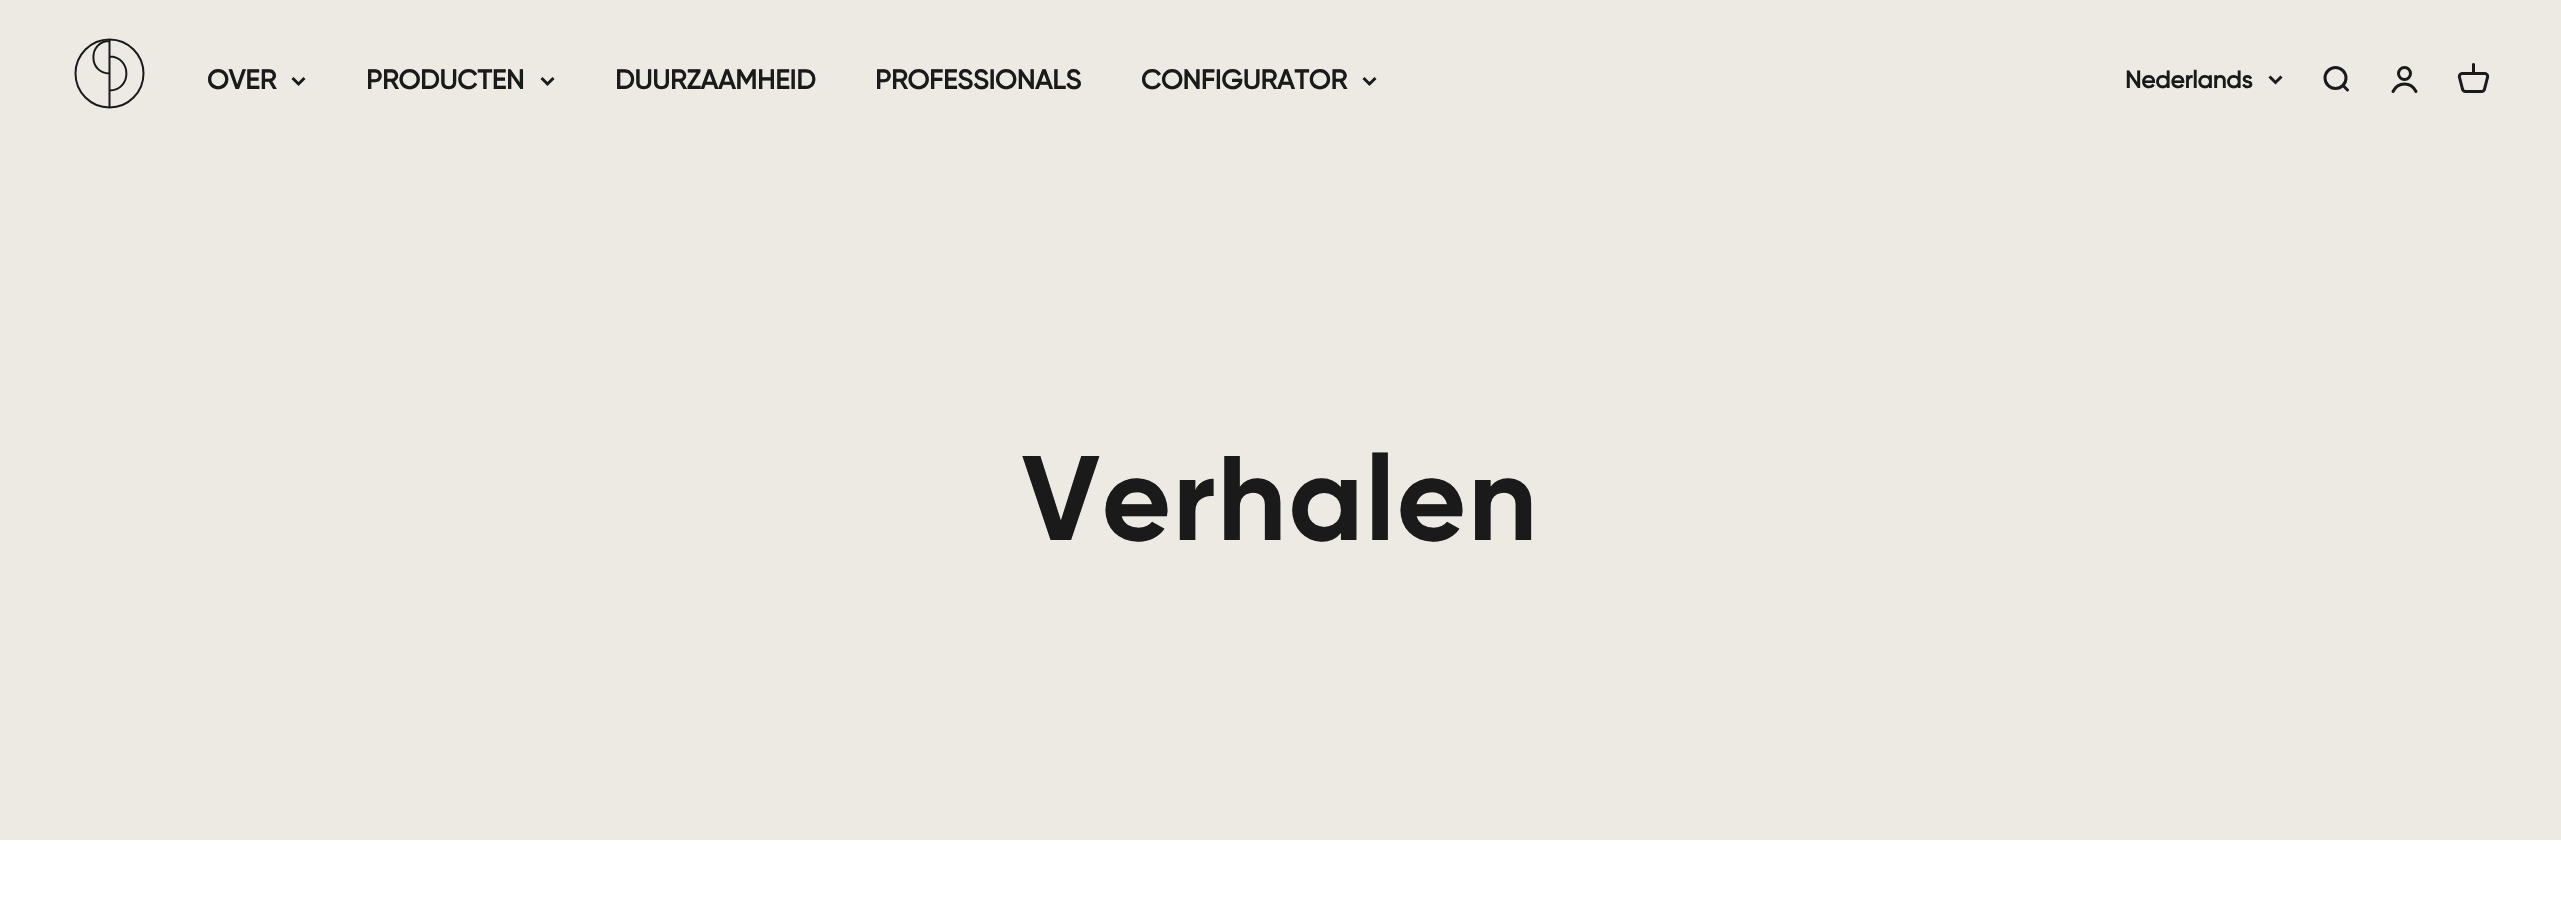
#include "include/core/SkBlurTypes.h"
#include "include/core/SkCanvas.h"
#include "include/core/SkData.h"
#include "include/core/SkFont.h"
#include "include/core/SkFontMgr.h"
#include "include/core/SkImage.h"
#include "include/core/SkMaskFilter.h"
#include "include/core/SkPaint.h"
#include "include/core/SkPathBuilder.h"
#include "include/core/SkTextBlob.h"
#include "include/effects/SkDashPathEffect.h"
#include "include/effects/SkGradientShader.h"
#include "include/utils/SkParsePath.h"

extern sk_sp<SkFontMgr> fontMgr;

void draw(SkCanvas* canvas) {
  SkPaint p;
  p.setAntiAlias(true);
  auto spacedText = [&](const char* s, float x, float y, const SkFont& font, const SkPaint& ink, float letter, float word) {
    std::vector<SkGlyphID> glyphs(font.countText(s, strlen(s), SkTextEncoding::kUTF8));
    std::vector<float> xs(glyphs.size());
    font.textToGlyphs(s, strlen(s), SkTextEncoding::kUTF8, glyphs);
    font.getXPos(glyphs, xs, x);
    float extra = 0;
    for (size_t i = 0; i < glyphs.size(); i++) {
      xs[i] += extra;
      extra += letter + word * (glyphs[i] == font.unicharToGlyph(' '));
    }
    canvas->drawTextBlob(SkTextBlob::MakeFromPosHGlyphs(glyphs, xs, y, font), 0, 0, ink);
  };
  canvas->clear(SK_ColorWHITE);
  p.setColor(SkColorSetRGB(236, 234, 227));
  canvas->drawRect(SkRect::MakeLTRB(0, 0, 2561, 840), p);
  p.setStyle(SkPaint::kStroke_Style);
  p.setStrokeWidth(2);
  p.setColor(SkColorSetRGB(26, 26, 26));
  canvas->drawCircle(109.5f, 73.5f, 34, p);
  canvas->drawPath(SkPathBuilder().moveTo(109.5f, 41).cubicTo(88, 41, 88, 73.5f, 109.5f, 73.5f).moveTo(109.5f, 56.5f).cubicTo(132, 56.5f, 132, 90.5f, 109.5f, 90.5f).moveTo(109.5f, 39.5f).lineTo(109.5f, 107.5f).detach(), p);
  p.setStrokeWidth(3);
  canvas->drawPath(SkPathBuilder().moveTo(292.5f, 78).lineTo(298.5f, 84).lineTo(304.5f, 78).detach(), p);
  canvas->drawPath(SkPathBuilder().moveTo(541.5f, 78).lineTo(547.5f, 84).lineTo(553.5f, 78).detach(), p);
  canvas->drawPath(SkPathBuilder().moveTo(1363.5f, 78).lineTo(1369.5f, 84).lineTo(1375.5f, 78).detach(), p);
  canvas->drawPath(SkPathBuilder().moveTo(2269.5f, 76.5f).lineTo(2275.5f, 82.5f).lineTo(2281.5f, 76.5f).detach(), p);
  canvas->drawCircle(2335.5f, 78, 10.5f, p);
  p.setStrokeCap(SkPaint::kRound_Cap);
  p.setStrokeJoin(SkPaint::kRound_Join);
  canvas->drawPath(SkPathBuilder().moveTo(2343, 85.5f).lineTo(2347.5f, 90).detach(), p);
  p.setStrokeCap(SkPaint::kButt_Cap);
  p.setStrokeJoin(SkPaint::kMiter_Join);
  canvas->drawCircle(2404.5f, 73.5f, 6, p);
  p.setStrokeCap(SkPaint::kRound_Cap);
  canvas->drawPath(SkPathBuilder().moveTo(2393, 91.5f).cubicTo(2398, 81.5f, 2411, 81.5f, 2416, 91.5f).detach(), p);
  canvas->drawImageRect(SkImages::DeferredFromEncodedData(SkData::MakeFromFileName("images/1.png")), SkRect::MakeLTRB(2457, 63, 2490, 93), SkSamplingOptions());
  SkFont font1(fontMgr->matchFamilyStyle("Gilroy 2", SkFontStyle::Bold()), 27);
  font1.setSubpixel(true);
  p.setStyle(SkPaint::kFill_Style);
  canvas->drawString("OVER", 207, 89, font1, p);
  canvas->drawString("PRODUCTEN", 366, 89, font1, p);
  canvas->drawString("DUURZAAMHEID", 615, 89, font1, p);
  canvas->drawString("PROFESSIONALS", 875, 89, font1, p);
  canvas->drawString("CONFIGURATOR", 1141, 89, font1, p);
  SkFont font2(fontMgr->matchFamilyStyle("Gilroy 2", SkFontStyle::Bold()), 24);
  font2.setSubpixel(true);
  canvas->drawString("Nederlands", 2125, 88, font2, p);
  SkFont font3(fontMgr->matchFamilyStyle("Gilroy", SkFontStyle::Bold()), 120);
  font3.setSubpixel(true);
  spacedText("Verhalen", 1022, 540, font3, p, 1.75f, 0);
}
